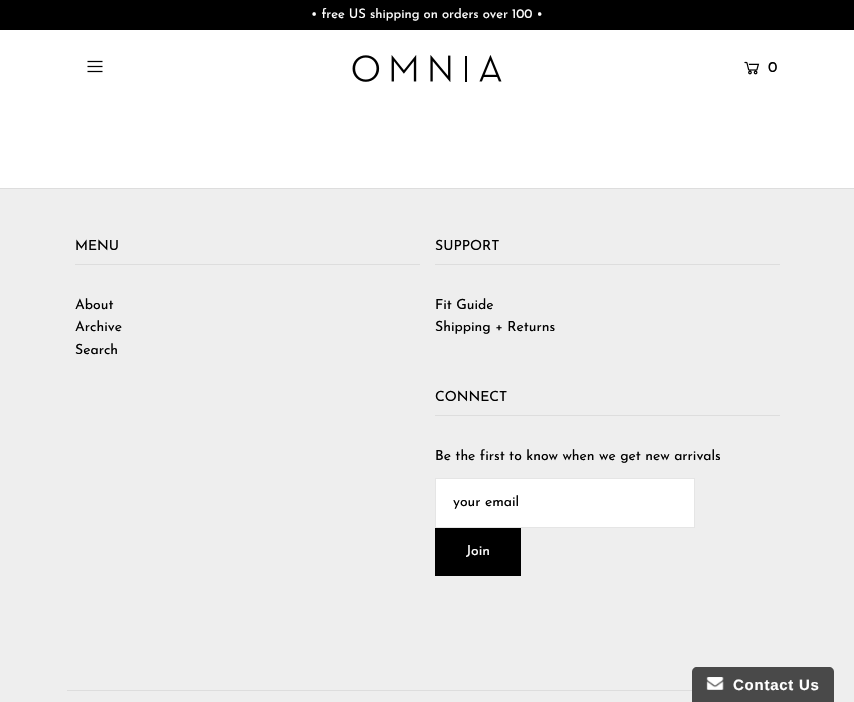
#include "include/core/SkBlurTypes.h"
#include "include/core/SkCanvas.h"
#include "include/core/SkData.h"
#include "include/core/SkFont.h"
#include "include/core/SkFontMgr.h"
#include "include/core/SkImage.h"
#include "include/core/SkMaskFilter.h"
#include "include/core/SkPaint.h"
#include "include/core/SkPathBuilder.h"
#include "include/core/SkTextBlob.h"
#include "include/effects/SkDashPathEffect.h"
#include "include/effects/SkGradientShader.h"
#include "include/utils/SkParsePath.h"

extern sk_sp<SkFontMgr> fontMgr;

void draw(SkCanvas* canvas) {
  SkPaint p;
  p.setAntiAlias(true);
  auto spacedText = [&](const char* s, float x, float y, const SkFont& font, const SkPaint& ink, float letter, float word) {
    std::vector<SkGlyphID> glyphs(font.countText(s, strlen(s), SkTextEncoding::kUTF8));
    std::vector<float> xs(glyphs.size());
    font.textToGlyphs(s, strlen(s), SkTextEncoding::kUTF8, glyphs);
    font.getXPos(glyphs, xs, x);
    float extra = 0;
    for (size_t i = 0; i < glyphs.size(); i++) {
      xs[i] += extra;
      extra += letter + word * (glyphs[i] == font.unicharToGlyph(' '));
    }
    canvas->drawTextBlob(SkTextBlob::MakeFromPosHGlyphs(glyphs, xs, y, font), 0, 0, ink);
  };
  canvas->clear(SK_ColorWHITE);
  p.setColor(SK_ColorBLACK);
  canvas->drawRect(SkRect::MakeLTRB(0, 0, 854, 30), p);
  canvas->drawImageRect(SkImages::DeferredFromEncodedData(SkData::MakeFromFileName("images/1.png")), SkRect::MakeLTRB(87, 60, 103, 73), SkSamplingOptions());
  canvas->drawImageRect(SkImages::DeferredFromEncodedData(SkData::MakeFromFileName("images/2.png")), SkRect::MakeLTRB(352, 55, 502, 82), SkSamplingOptions());
  canvas->drawImageRect(SkImages::DeferredFromEncodedData(SkData::MakeFromFileName("images/3.png")), SkRect::MakeLTRB(744, 61, 760, 75), SkSamplingOptions());
  p.setColor(SkColorSetRGB(238, 238, 238));
  canvas->drawRect(SkRect::MakeLTRB(0, 189, 854, 702), p);
  p.setColor(SkColorSetRGB(221, 221, 221));
  canvas->drawRect(SkRect::MakeLTRB(0, 188, 854, 189), p);
  canvas->drawRect(SkRect::MakeLTRB(75, 264, 420, 265), p);
  canvas->drawRect(SkRect::MakeLTRB(435, 264, 780, 265), p);
  canvas->drawRect(SkRect::MakeLTRB(435, 415, 780, 416), p);
  p.setColor(SK_ColorWHITE);
  canvas->drawRect(SkRect::MakeLTRB(435.5f, 478.5f, 694.5f, 527.5f), p);
  p.setStyle(SkPaint::kStroke_Style);
  p.setStrokeWidth(1);
  p.setColor(SkColorSetRGB(229, 229, 229));
  canvas->drawRect(SkRect::MakeLTRB(435.5f, 478.5f, 694.5f, 527.5f), p);
  p.setStyle(SkPaint::kFill_Style);
  p.setColor(SK_ColorBLACK);
  canvas->drawRect(SkRect::MakeLTRB(435, 528, 521, 576), p);
  p.setColor(SkColorSetRGB(221, 221, 221));
  canvas->drawRect(SkRect::MakeLTRB(67, 690, 692, 691), p);
  p.setColor(SkColorSetRGB(73, 73, 73));
  canvas->drawPath(SkPathBuilder().moveTo(697, 667).lineTo(829, 667).cubicTo(832, 667, 834, 669, 834, 672).lineTo(834, 702).lineTo(692, 702).lineTo(692, 672).cubicTo(692, 669, 694, 667, 697, 667).close().detach(), p);
  canvas->drawImageRect(SkImages::DeferredFromEncodedData(SkData::MakeFromFileName("images/4.png")), SkRect::MakeLTRB(706, 677, 724, 690), SkSamplingOptions());
  SkFont font1(fontMgr->matchFamilyStyle("Josefin Sans", SkFontStyle::Normal()), 13);
  font1.setSubpixel(true);
  p.setColor(SK_ColorWHITE);
  canvas->drawString("• free US shipping on orders over 100 •", 311, 18, font1, p);
  SkFont font2(fontMgr->matchFamilyStyle("Josefin Sans", SkFontStyle::Normal()), 15);
  font2.setSubpixel(true);
  p.setColor(SK_ColorBLACK);
  canvas->drawString("0", 768, 72, font2, p);
  SkFont font3(fontMgr->matchFamilyStyle("Josefin Sans", SkFontStyle::Normal()), 14);
  font3.setSubpixel(true);
  canvas->drawString("MENU", 75, 250, font3, p);
  canvas->drawString("About", 75, 309, font3, p);
  canvas->drawString("Archive", 75, 331, font3, p);
  canvas->drawString("Search", 75, 354, font3, p);
  canvas->drawString("SUPPORT", 435, 250, font3, p);
  canvas->drawString("Fit Guide", 435, 309, font3, p);
  canvas->drawString("Shipping + Returns", 435, 331, font3, p);
  canvas->drawString("CONNECT", 435, 401, font3, p);
  canvas->drawString("Be the first to know when we get new arrivals", 435, 460, font3, p);
  canvas->drawString("your email", 453, 506, font3, p);
  p.setColor(SK_ColorWHITE);
  canvas->drawString("Join", 466, 555, font3, p);
  SkFont font4(fontMgr->matchFamilyStyle("Liberation Sans", SkFontStyle::Bold()), 15);
  font4.setSubpixel(true);
  spacedText("Contact Us", 733, 690, font4, p, 0.75f, 0);
}
